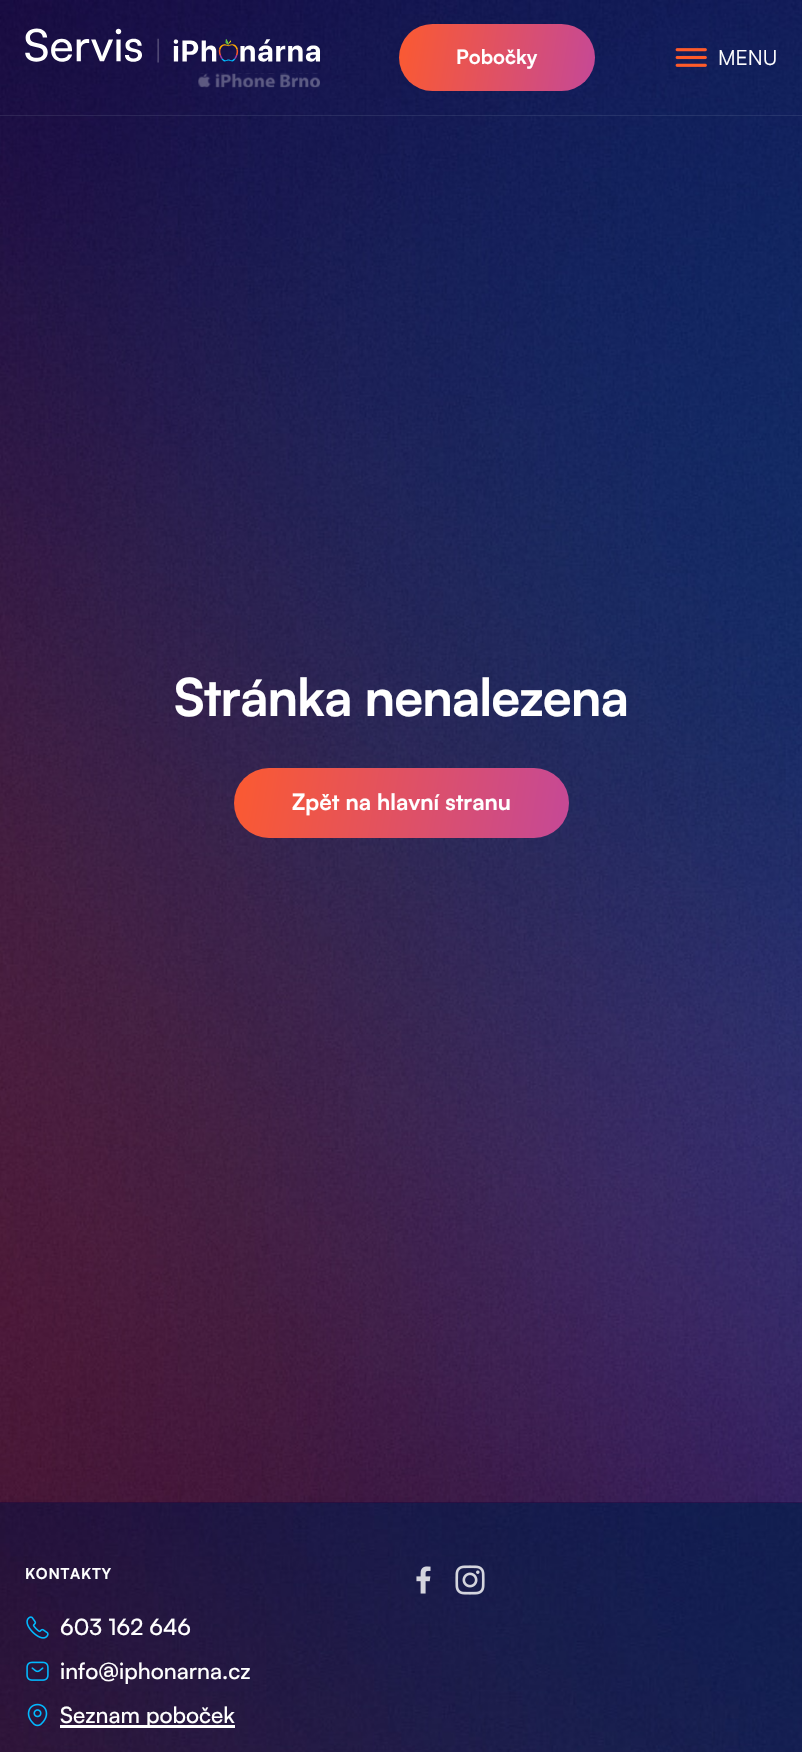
#include "include/core/SkBlurTypes.h"
#include "include/core/SkCanvas.h"
#include "include/core/SkData.h"
#include "include/core/SkFont.h"
#include "include/core/SkFontMgr.h"
#include "include/core/SkImage.h"
#include "include/core/SkMaskFilter.h"
#include "include/core/SkPaint.h"
#include "include/core/SkPathBuilder.h"
#include "include/core/SkTextBlob.h"
#include "include/effects/SkDashPathEffect.h"
#include "include/effects/SkGradientShader.h"
#include "include/utils/SkParsePath.h"

extern sk_sp<SkFontMgr> fontMgr;

void draw(SkCanvas* canvas) {
  SkPaint p;
  p.setAntiAlias(true);
  auto spacedText = [&](const char* s, float x, float y, const SkFont& font, const SkPaint& ink, float letter, float word) {
    std::vector<SkGlyphID> glyphs(font.countText(s, strlen(s), SkTextEncoding::kUTF8));
    std::vector<float> xs(glyphs.size());
    font.textToGlyphs(s, strlen(s), SkTextEncoding::kUTF8, glyphs);
    font.getXPos(glyphs, xs, x);
    float extra = 0;
    for (size_t i = 0; i < glyphs.size(); i++) {
      xs[i] += extra;
      extra += letter + word * (glyphs[i] == font.unicharToGlyph(' '));
    }
    canvas->drawTextBlob(SkTextBlob::MakeFromPosHGlyphs(glyphs, xs, y, font), 0, 0, ink);
  };
  canvas->clear(SK_ColorWHITE);
  p.setColor(SkColorSetRGB(24, 5, 62));
  canvas->drawRect(SkRect::MakeLTRB(0, 1502, 802, 1503), p);
  canvas->drawImageRect(SkImages::DeferredFromEncodedData(SkData::MakeFromFileName("images/3.png")), SkRect::MakeLTRB(0, 0, 802, 1503), SkSamplingOptions());
  p.setColor(SkColorSetARGB(26, 209, 224, 239));
  canvas->drawRect(SkRect::MakeLTRB(0, 115, 802, 116), p);
  canvas->drawImageRect(SkImages::DeferredFromEncodedData(SkData::MakeFromFileName("images/1.png")), SkRect::MakeLTRB(25, 28, 320, 88), SkSamplingOptions());
  {
    const SkColor colors[] = {SkColorSetRGB(255, 91, 41), SkColorSetRGB(180, 67, 183), SkColorSetRGB(61, 202, 255)};
    const float stops[] = {0, 0.83f, 1};
    const SkPoint ends[] = {{381, 38}, {720, 95}};
    p.setShader(SkGradientShader::MakeLinear(ends, colors, stops, 3, SkTileMode::kClamp));
    p.setAlpha(255);
  }
  canvas->drawRoundRect(SkRect::MakeLTRB(399, 24, 595, 91), 33.5f, 33.5f, p);
  canvas->drawImageRect(SkImages::DeferredFromEncodedData(SkData::MakeFromFileName("images/2.png")), SkRect::MakeLTRB(675, 48, 707, 67), SkSamplingOptions());
  {
    const SkColor colors[] = {SkColorSetRGB(255, 91, 41), SkColorSetRGB(180, 67, 183), SkColorSetRGB(61, 202, 255)};
    const float stops[] = {0, 0.83f, 1};
    const SkPoint ends[] = {{208, 770}, {774, 865}};
    p.setShader(SkGradientShader::MakeLinear(ends, colors, stops, 3, SkTileMode::kClamp));
    p.setAlpha(255);
  }
  canvas->drawRoundRect(SkRect::MakeLTRB(234, 768, 569, 838), 35, 35, p);
  canvas->drawImageRect(SkImages::DeferredFromEncodedData(SkData::MakeFromFileName("images/4.png")), SkRect::MakeLTRB(0, 1503, 802, 1752), SkSamplingOptions());
  canvas->drawImageRect(SkImages::DeferredFromEncodedData(SkData::MakeFromFileName("images/5.png")), SkRect::MakeLTRB(26, 1616, 49, 1639), SkSamplingOptions());
  canvas->drawImageRect(SkImages::DeferredFromEncodedData(SkData::MakeFromFileName("images/6.png")), SkRect::MakeLTRB(26, 1661, 49, 1681), SkSamplingOptions());
  canvas->drawImageRect(SkImages::DeferredFromEncodedData(SkData::MakeFromFileName("images/7.png")), SkRect::MakeLTRB(27, 1703, 48, 1727), SkSamplingOptions());
  p.setShader(nullptr);
  p.setColor(SK_ColorWHITE);
  canvas->drawRect(SkRect::MakeLTRB(60, 1725, 235, 1728), p);
  canvas->drawImageRect(SkImages::DeferredFromEncodedData(SkData::MakeFromFileName("images/8.png")), SkRect::MakeLTRB(416, 1566, 431, 1594), SkSamplingOptions());
  canvas->drawImageRect(SkImages::DeferredFromEncodedData(SkData::MakeFromFileName("images/9.png")), SkRect::MakeLTRB(455, 1565, 485, 1595), SkSamplingOptions());
  SkFont font1(fontMgr->matchFamilyStyle("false", SkFontStyle::Bold()), 20);
  font1.setSubpixel(true);
  canvas->drawString("Pobočky", 456, 64, font1, p);
  SkFont font2(fontMgr->matchFamilyStyle("false", SkFontStyle::Normal()), 21);
  font2.setSubpixel(true);
  canvas->drawString("MENU", 718, 65, font2, p);
  SkFont font3(fontMgr->matchFamilyStyle("false", SkFontStyle::Bold()), 52);
  font3.setSubpixel(true);
  spacedText("Stránka nenalezena", 174, 716, font3, p, -1, 0);
  SkFont font4(fontMgr->matchFamilyStyle("false", SkFontStyle::Bold()), 22.5f);
  font4.setSubpixel(true);
  canvas->drawString("Zpět na hlavní stranu", 292, 810, font4, p);
  SkFont font5(fontMgr->matchFamilyStyle("false", SkFontStyle::Bold()), 15);
  font5.setSubpixel(true);
  spacedText("KONTAKTY", 25, 1579, font5, p, 0.75f, 0);
  SkFont font6(fontMgr->matchFamilyStyle("Satoshi", SkFontStyle(500, SkFontStyle::kNormal_Width, SkFontStyle::kUpright_Slant)), 22.5f);
  font6.setSubpixel(true);
  canvas->drawString("603 162 646", 60, 1635, font6, p);
  canvas->drawString("info@iphonarna.cz", 60, 1679, font6, p);
  canvas->drawString("Seznam poboček", 60, 1723, font6, p);
}
